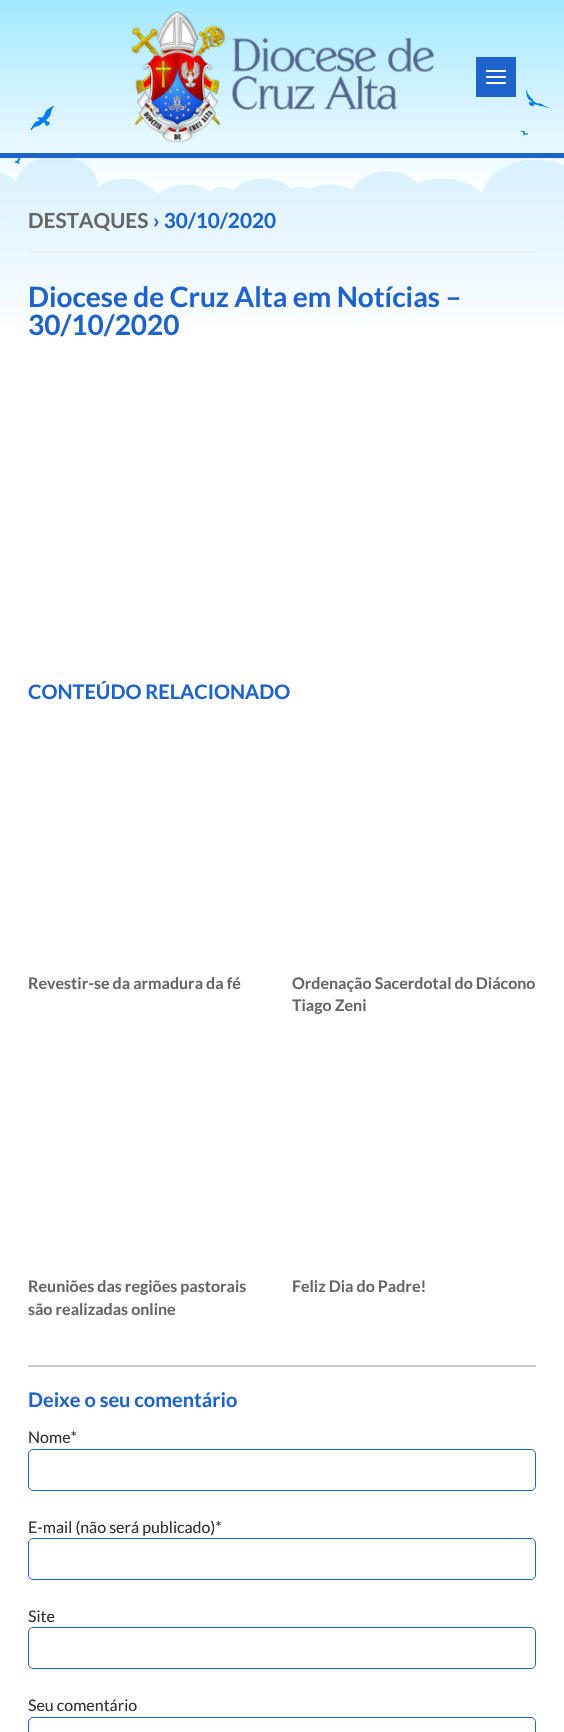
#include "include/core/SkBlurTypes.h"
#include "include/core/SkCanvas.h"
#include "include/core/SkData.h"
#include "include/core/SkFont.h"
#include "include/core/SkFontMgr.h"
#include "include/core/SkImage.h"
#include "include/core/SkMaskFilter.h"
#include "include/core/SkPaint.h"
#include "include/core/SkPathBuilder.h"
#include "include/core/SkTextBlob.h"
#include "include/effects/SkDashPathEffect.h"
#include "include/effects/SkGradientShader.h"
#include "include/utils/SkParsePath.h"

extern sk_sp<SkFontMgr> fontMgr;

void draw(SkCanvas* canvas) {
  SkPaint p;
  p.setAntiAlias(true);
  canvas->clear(SK_ColorWHITE);
  canvas->drawImageRect(SkImages::DeferredFromEncodedData(SkData::MakeFromFileName("images/1.png")), SkRect::MakeLTRB(0, 0, 564, 323), SkSamplingOptions());
  p.setColor(SkColorSetRGB(30, 99, 204));
  canvas->drawRect(SkRect::MakeLTRB(0, 153, 564, 158), p);
  canvas->drawImageRect(SkImages::DeferredFromEncodedData(SkData::MakeFromFileName("images/2.png")), SkRect::MakeLTRB(131, 11, 434, 143), SkSamplingOptions());
  canvas->drawRect(SkRect::MakeLTRB(476, 57, 516, 97), p);
  p.setColor(SK_ColorWHITE);
  canvas->drawRect(SkRect::MakeLTRB(486, 70, 506, 72), p);
  canvas->drawRect(SkRect::MakeLTRB(486, 76, 506, 78), p);
  canvas->drawRect(SkRect::MakeLTRB(486, 82, 506, 84), p);
  p.setColor(SkColorSetRGB(233, 233, 233));
  canvas->drawRect(SkRect::MakeLTRB(28, 251, 536, 252), p);
  p.setColor(SkColorSetRGB(204, 204, 204));
  canvas->drawRect(SkRect::MakeLTRB(28, 1365, 536, 1367), p);
  p.setStyle(SkPaint::kStroke_Style);
  p.setStrokeWidth(1);
  p.setColor(SkColorSetRGB(30, 99, 204));
  canvas->drawRoundRect(SkRect::MakeLTRB(28.5f, 1449.5f, 535.5f, 1490.5f), 4.5f, 4.5f, p);
  canvas->drawRoundRect(SkRect::MakeLTRB(28.5f, 1538.5f, 535.5f, 1579.5f), 4.5f, 4.5f, p);
  canvas->drawRoundRect(SkRect::MakeLTRB(28.5f, 1627.5f, 535.5f, 1668.5f), 4.5f, 4.5f, p);
  canvas->drawRoundRect(SkRect::MakeLTRB(28.5f, 1717.5f, 535.5f, 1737.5f), 4.5f, 4.5f, p);
  SkFont font1(fontMgr->matchFamilyStyle("Lato", SkFontStyle::Bold()), 20.75f);
  font1.setSubpixel(true);
  p.setStyle(SkPaint::kFill_Style);
  p.setColor(SkColorSetRGB(102, 102, 102));
  canvas->drawString("DESTAQUES", 28, 228, font1, p);
  p.setColor(SkColorSetRGB(30, 99, 204));
  canvas->drawString("› 30/10/2020", 153, 228, font1, p);
  SkFont font2(fontMgr->matchFamilyStyle("Lato", SkFontStyle::Bold()), 28);
  font2.setSubpixel(true);
  canvas->drawString("Diocese de Cruz Alta em Notícias –", 28, 307, font2, p);
  canvas->drawString("30/10/2020", 28, 335, font2, p);
  SkFont font3(fontMgr->matchFamilyStyle("Lato", SkFontStyle::Bold()), 20);
  font3.setSubpixel(true);
  canvas->drawString("CONTEÚDO RELACIONADO", 28, 699, font3, p);
  SkFont font4(fontMgr->matchFamilyStyle("Lato", SkFontStyle::Bold()), 16);
  font4.setSubpixel(true);
  p.setColor(SkColorSetRGB(102, 102, 102));
  canvas->drawString("Revestir-se da armadura da fé", 28, 989, font4, p);
  canvas->drawString("Ordenação Sacerdotal do Diácono", 292, 989, font4, p);
  canvas->drawString("Tiago Zeni", 292, 1011, font4, p);
  canvas->drawString("Reuniões das regiões pastorais", 28, 1292, font4, p);
  canvas->drawString("são realizadas online", 28, 1315, font4, p);
  canvas->drawString("Feliz Dia do Padre!", 292, 1292, font4, p);
  p.setColor(SkColorSetRGB(30, 99, 204));
  canvas->drawString("Deixe o seu comentário", 28, 1407, font3, p);
  SkFont font5(fontMgr->matchFamilyStyle("Lato", SkFontStyle::Normal()), 16);
  font5.setSubpixel(true);
  p.setColor(SkColorSetRGB(51, 51, 51));
  canvas->drawString("Nome*", 28, 1443, font5, p);
  canvas->drawString("E-mail (não será publicado)*", 28, 1533, font5, p);
  canvas->drawString("Site", 28, 1622, font5, p);
  canvas->drawString("Seu comentário", 28, 1711, font5, p);
}
